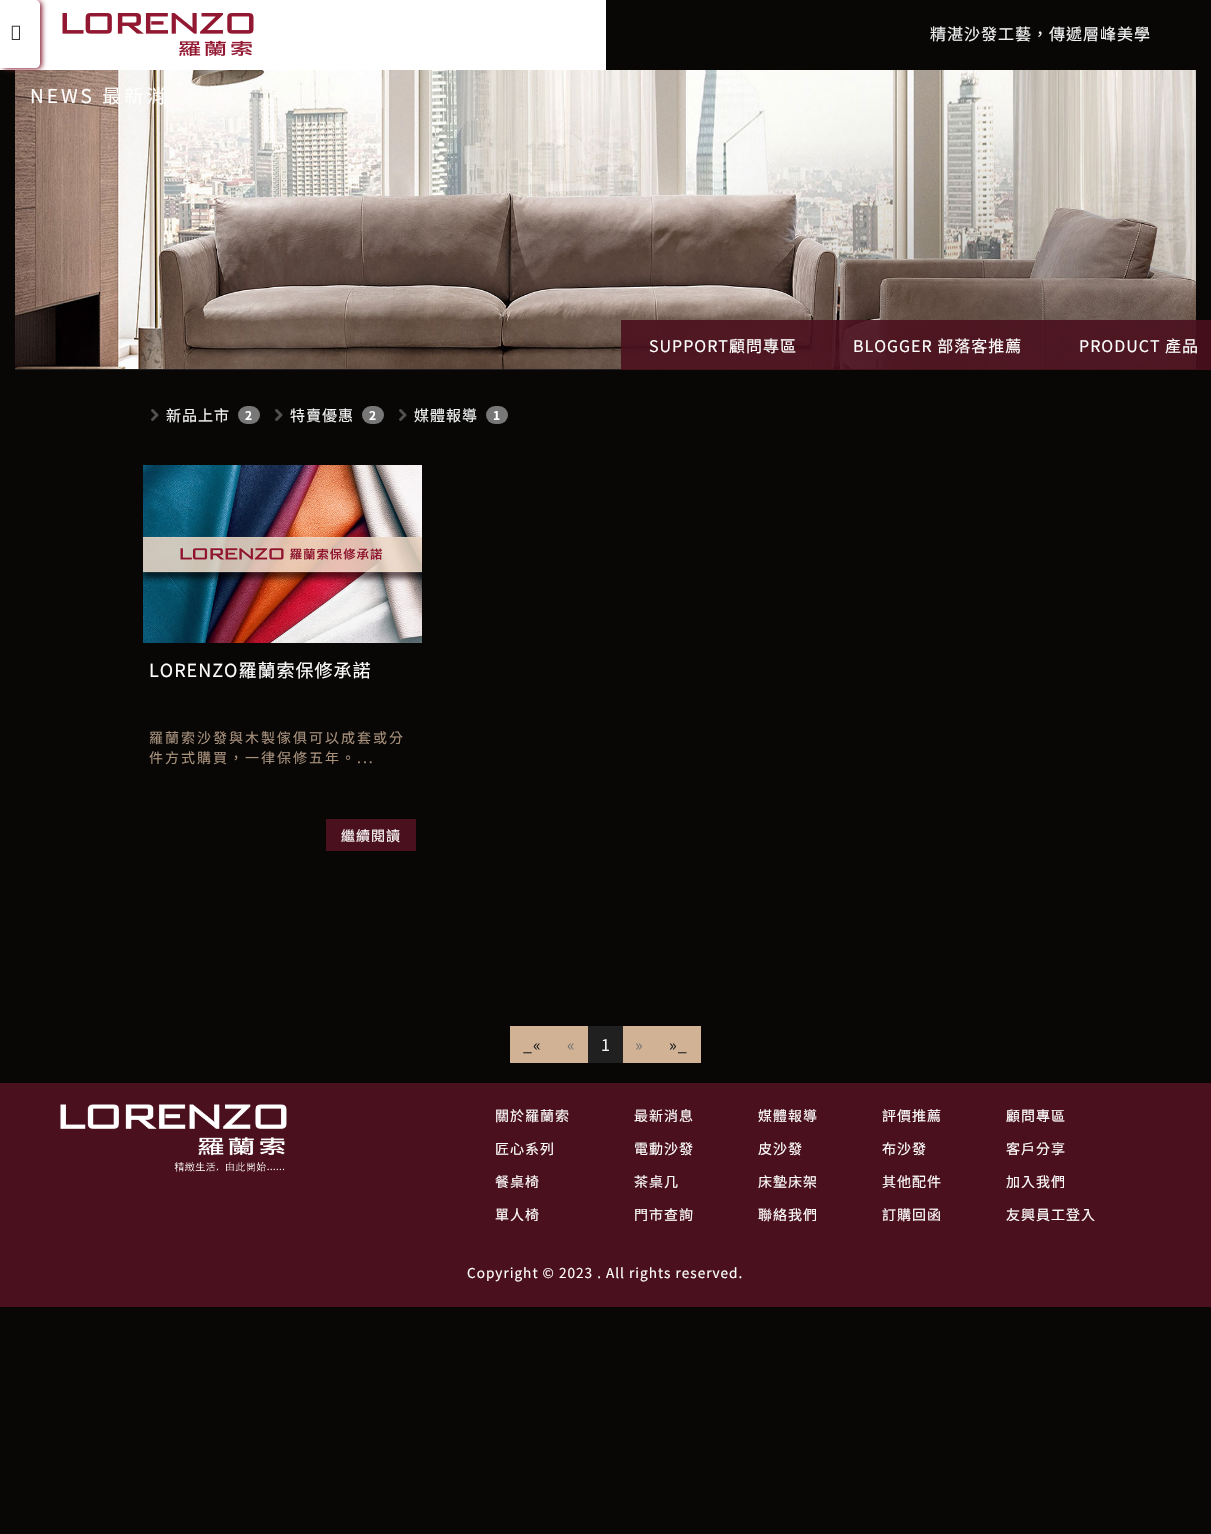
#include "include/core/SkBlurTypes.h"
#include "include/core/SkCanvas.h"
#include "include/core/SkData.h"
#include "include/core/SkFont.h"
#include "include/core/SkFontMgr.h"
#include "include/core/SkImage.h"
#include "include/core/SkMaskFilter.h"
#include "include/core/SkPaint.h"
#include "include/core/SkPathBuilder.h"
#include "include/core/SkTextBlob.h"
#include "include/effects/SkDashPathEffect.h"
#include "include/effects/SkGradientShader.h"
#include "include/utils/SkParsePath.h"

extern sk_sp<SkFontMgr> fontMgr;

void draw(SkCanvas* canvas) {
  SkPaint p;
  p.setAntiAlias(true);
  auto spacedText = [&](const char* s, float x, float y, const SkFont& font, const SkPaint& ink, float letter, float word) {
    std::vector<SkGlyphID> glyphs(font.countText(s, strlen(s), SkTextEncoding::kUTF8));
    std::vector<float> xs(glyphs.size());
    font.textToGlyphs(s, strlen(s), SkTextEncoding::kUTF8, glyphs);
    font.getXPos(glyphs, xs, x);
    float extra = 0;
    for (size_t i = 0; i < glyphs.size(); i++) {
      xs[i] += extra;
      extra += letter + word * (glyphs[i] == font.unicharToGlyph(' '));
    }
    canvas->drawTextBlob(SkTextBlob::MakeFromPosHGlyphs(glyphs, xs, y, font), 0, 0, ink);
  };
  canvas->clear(SkColorSetRGB(8, 7, 6));
  p.setColor(SK_ColorWHITE);
  canvas->drawRect(SkRect::MakeLTRB(0, 0, 606, 70), p);
  canvas->drawImageRect(SkImages::DeferredFromEncodedData(SkData::MakeFromFileName("images/1.png")), SkRect::MakeLTRB(62, 13, 254, 56), SkSamplingOptions());
  canvas->drawImageRect(SkImages::DeferredFromEncodedData(SkData::MakeFromFileName("images/3.png")), SkRect::MakeLTRB(15, 70, 1196, 369), SkSamplingOptions());
  p.setColor(SkColorSetRGB(133, 33, 52));
  p.setMaskFilter(SkMaskFilter::MakeBlur(kNormal_SkBlurStyle, 2.5f));
  canvas->drawRoundRect(SkRect::MakeLTRB(2, 1, 42, 69), 5, 5, p);
  p.setMaskFilter(nullptr);
  p.setColor(SK_ColorWHITE);
  canvas->drawPath(SkPathBuilder().moveTo(0, 0).lineTo(35, 0).cubicTo(38, 0, 40, 2, 40, 5).lineTo(40, 63).cubicTo(40, 66, 38, 68, 35, 68).lineTo(0, 68).close().detach(), p);
  canvas->drawImageRect(SkImages::DeferredFromEncodedData(SkData::MakeFromFileName("images/2.png")), SkRect::MakeLTRB(11, 25, 20, 40), SkSamplingOptions());
  p.setColor(SkColorSetRGB(32, 32, 32));
  canvas->drawRect(SkRect::MakeLTRB(15, 369, 1196, 370), p);
  p.setColor(SkColorSetARGB(230, 74, 16, 29));
  canvas->drawRect(SkRect::MakeLTRB(621, 320, 1211, 370), p);
  canvas->drawImageRect(SkImages::DeferredFromEncodedData(SkData::MakeFromFileName("images/4.png")), SkRect::MakeLTRB(151, 409, 159, 421), SkSamplingOptions());
  p.setColor(SkColorSetRGB(119, 119, 119));
  canvas->drawRoundRect(SkRect::MakeLTRB(238, 406, 260, 424), 9, 9, p);
  canvas->drawImageRect(SkImages::DeferredFromEncodedData(SkData::MakeFromFileName("images/4.png")), SkRect::MakeLTRB(275, 409, 283, 421), SkSamplingOptions());
  canvas->drawRoundRect(SkRect::MakeLTRB(362, 406, 384, 424), 9, 9, p);
  canvas->drawImageRect(SkImages::DeferredFromEncodedData(SkData::MakeFromFileName("images/4.png")), SkRect::MakeLTRB(399, 409, 407, 421), SkSamplingOptions());
  canvas->drawRoundRect(SkRect::MakeLTRB(486, 406, 508, 424), 9, 9, p);
  canvas->drawImageRect(SkImages::DeferredFromEncodedData(SkData::MakeFromFileName("images/5.png")), SkRect::MakeLTRB(143, 465, 422, 643), SkSamplingOptions());
  p.setColor(SkColorSetRGB(74, 16, 29));
  canvas->drawRect(SkRect::MakeLTRB(326, 819, 416, 851), p);
  p.setColor(SkColorSetRGB(209, 178, 148));
  canvas->drawRect(SkRect::MakeLTRB(510, 1026, 588, 1063), p);
  p.setColor(SkColorSetRGB(32, 32, 32));
  canvas->drawRect(SkRect::MakeLTRB(588, 1026, 623, 1063), p);
  p.setColor(SkColorSetRGB(209, 178, 148));
  canvas->drawRect(SkRect::MakeLTRB(623, 1026, 701, 1063), p);
  p.setColor(SkColorSetRGB(74, 16, 29));
  canvas->drawRect(SkRect::MakeLTRB(0, 1083, 1211, 1307), p);
  canvas->drawImageRect(SkImages::DeferredFromEncodedData(SkData::MakeFromFileName("images/6.png")), SkRect::MakeLTRB(60, 1104, 287, 1172), SkSamplingOptions());
  SkFont font1(fontMgr->matchFamilyStyle("Noto Sans TC", SkFontStyle::Normal()), 16);
  font1.setSubpixel(true);
  p.setColor(SkColorSetRGB(242, 244, 243));
  spacedText("精湛沙發工藝，傳遞層峰美學", 930, 40, font1, p, 1, 0);
  SkFont font2(fontMgr->matchFamilyStyle("Noto Sans TC", SkFontStyle::Normal()), 19);
  font2.setSubpixel(true);
  p.setColor(SK_ColorWHITE);
  spacedText("NEWS 最新消", 30, 103, font2, p, 3, 0);
  spacedText("SUPPORT顧問專區", 649, 352, font1, p, 1, 0);
  spacedText("BLOGGER 部落客推薦", 853, 352, font1, p, 1, 0);
  spacedText("PRODUCT 產品", 1079, 352, font1, p, 1, 0);
  SkFont font3(fontMgr->matchFamilyStyle("Noto Sans TC", SkFontStyle::Normal()), 15);
  font3.setSubpixel(true);
  p.setColor(SkColorSetRGB(242, 244, 243));
  spacedText("新品上市", 166, 421, font3, p, 1, 0);
  SkFont font4(fontMgr->matchFamilyStyle("Noto Sans TC", SkFontStyle::Bold()), 12);
  font4.setSubpixel(true);
  p.setColor(SK_ColorWHITE);
  spacedText("2", 245, 420, font4, p, 1, 0);
  p.setColor(SkColorSetRGB(242, 244, 243));
  spacedText("特賣優惠", 290, 421, font3, p, 1, 0);
  p.setColor(SK_ColorWHITE);
  spacedText("2", 369, 420, font4, p, 1, 0);
  p.setColor(SkColorSetRGB(242, 244, 243));
  spacedText("媒體報導", 414, 421, font3, p, 1, 0);
  p.setColor(SK_ColorWHITE);
  spacedText("1", 493, 420, font4, p, 1, 0);
  SkFont font5(fontMgr->matchFamilyStyle("Noto Sans TC", SkFontStyle::Normal()), 18);
  font5.setSubpixel(true);
  spacedText("LORENZO羅蘭索保修承諾", 149, 677, font5, p, 1, 0);
  SkFont font6(fontMgr->matchFamilyStyle("Noto Sans TC", SkFontStyle::Normal()), 14);
  font6.setSubpixel(true);
  p.setColor(SkColorSetRGB(169, 146, 124));
  spacedText("羅蘭索沙發與木製傢俱可以成套或分", 149, 743, font6, p, 2, 0);
  spacedText("件方式購買，一律保修五年。...", 149, 763, font6, p, 2, 0);
  p.setColor(SK_ColorWHITE);
  spacedText("繼續閱讀", 341, 841, font6, p, 1, 0);
  p.setColor(SkColorSetRGB(32, 32, 32));
  spacedText("_«", 523, 1051, font1, p, 1, 0);
  p.setColor(SkColorSetRGB(119, 119, 119));
  spacedText("«", 567, 1051, font1, p, 1, 0);
  p.setColor(SkColorSetRGB(242, 244, 243));
  spacedText("1", 601, 1051, font1, p, 1, 0);
  p.setColor(SkColorSetRGB(119, 119, 119));
  spacedText("»", 635, 1051, font1, p, 1, 0);
  p.setColor(SkColorSetRGB(32, 32, 32));
  spacedText("»_", 669, 1051, font1, p, 1, 0);
  p.setColor(SK_ColorWHITE);
  spacedText("關於羅蘭索", 495, 1121, font6, p, 1, 0);
  spacedText("匠心系列", 495, 1154, font6, p, 1, 0);
  spacedText("餐桌椅", 495, 1187, font6, p, 1, 0);
  spacedText("單人椅", 495, 1220, font6, p, 1, 0);
  spacedText("最新消息", 634, 1121, font6, p, 1, 0);
  spacedText("電動沙發", 634, 1154, font6, p, 1, 0);
  spacedText("茶桌几", 634, 1187, font6, p, 1, 0);
  spacedText("門市查詢", 634, 1220, font6, p, 1, 0);
  spacedText("媒體報導", 758, 1121, font6, p, 1, 0);
  spacedText("皮沙發", 758, 1154, font6, p, 1, 0);
  spacedText("床墊床架", 758, 1187, font6, p, 1, 0);
  spacedText("聯絡我們", 758, 1220, font6, p, 1, 0);
  spacedText("評價推薦", 882, 1121, font6, p, 1, 0);
  spacedText("布沙發", 882, 1154, font6, p, 1, 0);
  spacedText("其他配件", 882, 1187, font6, p, 1, 0);
  spacedText("訂購回函", 882, 1220, font6, p, 1, 0);
  spacedText("顧問專區", 1006, 1121, font6, p, 1, 0);
  spacedText("客戶分享", 1006, 1154, font6, p, 1, 0);
  spacedText("加入我們", 1006, 1187, font6, p, 1, 0);
  spacedText("友興員工登入", 1006, 1220, font6, p, 1, 0);
  SkFont font7(fontMgr->matchFamilyStyle("Noto Sans TC", SkFontStyle::Normal()), 13.6f);
  font7.setSubpixel(true);
  spacedText("Copyright © 2023 . All rights reserved.", 467, 1278, font7, p, 1, 0);
}
